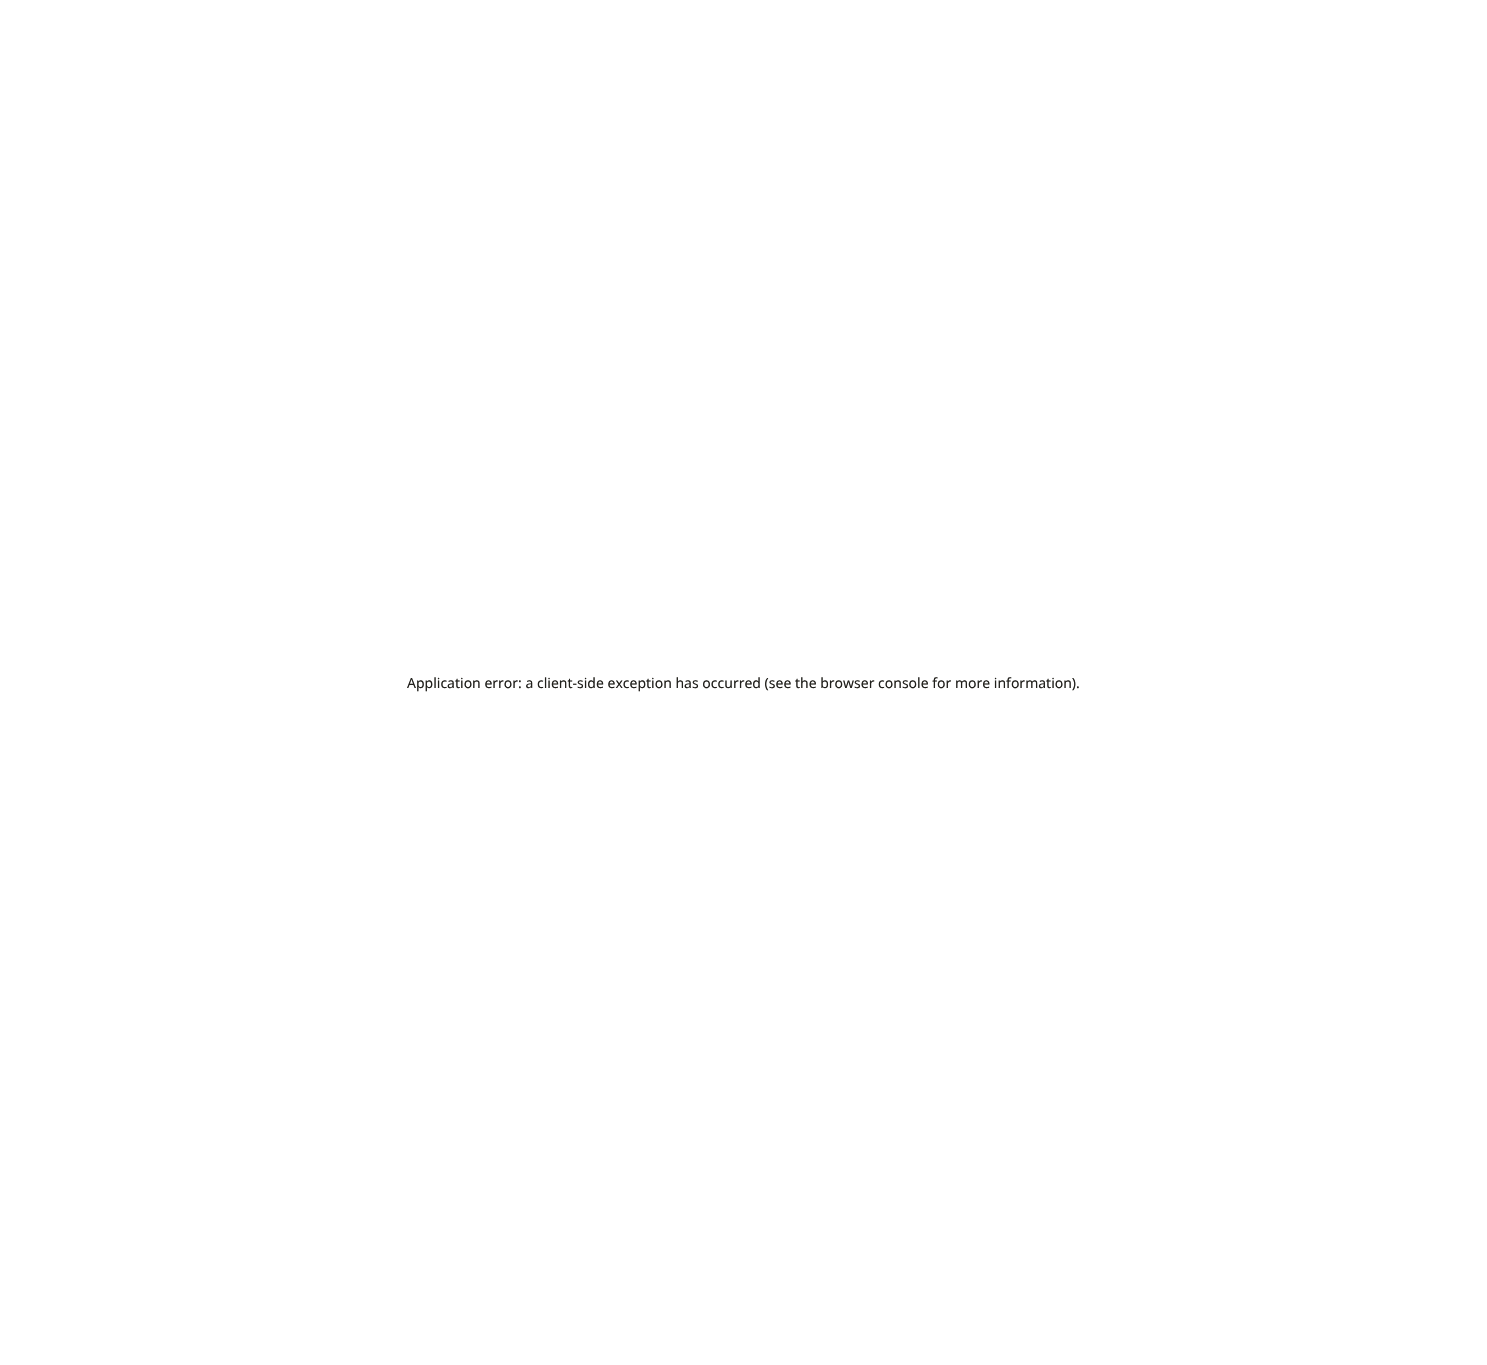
#include "include/core/SkBlurTypes.h"
#include "include/core/SkCanvas.h"
#include "include/core/SkData.h"
#include "include/core/SkFont.h"
#include "include/core/SkFontMgr.h"
#include "include/core/SkImage.h"
#include "include/core/SkMaskFilter.h"
#include "include/core/SkPaint.h"
#include "include/core/SkPathBuilder.h"
#include "include/core/SkTextBlob.h"
#include "include/effects/SkDashPathEffect.h"
#include "include/effects/SkGradientShader.h"
#include "include/utils/SkParsePath.h"

extern sk_sp<SkFontMgr> fontMgr;

void draw(SkCanvas* canvas) {
  SkPaint p;
  p.setAntiAlias(true);
  canvas->clear(SK_ColorWHITE);
  SkFont font1(fontMgr->matchFamilyStyle("Noto Sans", SkFontStyle::Normal()), 14);
  font1.setSubpixel(true);
  p.setColor(SkColorSetRGB(33, 32, 28));
  canvas->drawString("Application error: a client-side exception has occurred (see the browser console for more information).", 407, 688, font1, p);
}
